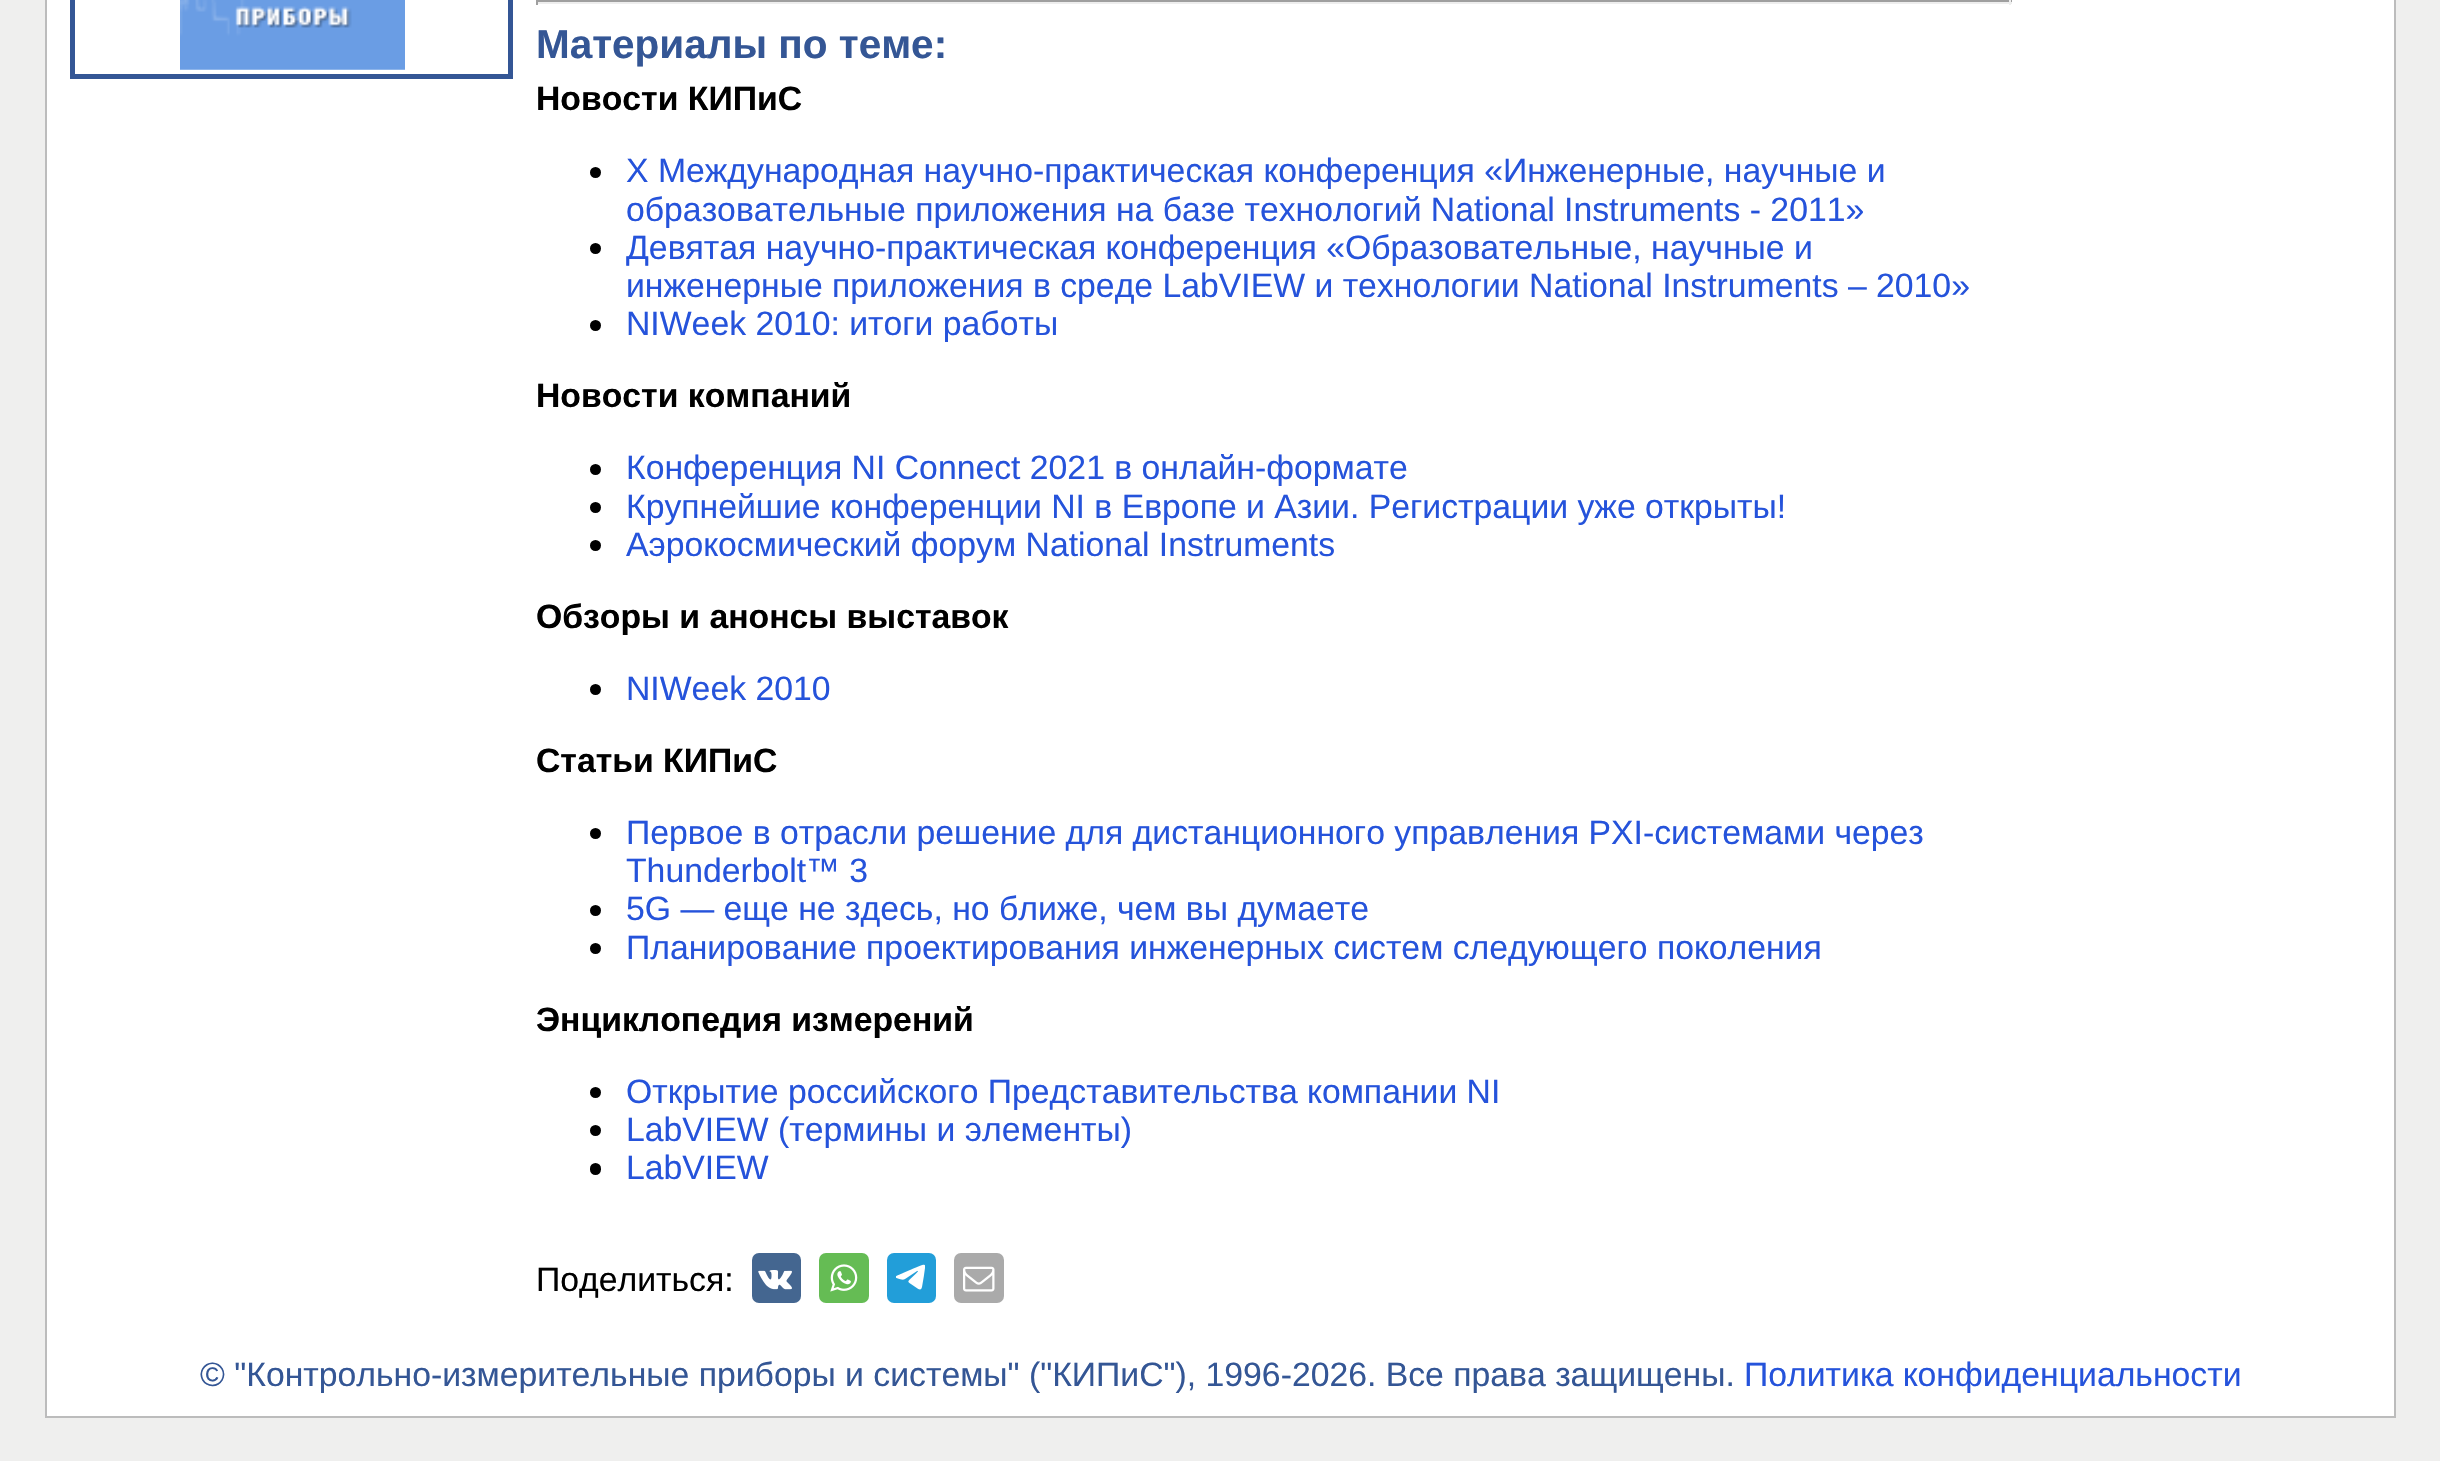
#include "include/core/SkBlurTypes.h"
#include "include/core/SkCanvas.h"
#include "include/core/SkData.h"
#include "include/core/SkFont.h"
#include "include/core/SkFontMgr.h"
#include "include/core/SkImage.h"
#include "include/core/SkMaskFilter.h"
#include "include/core/SkPaint.h"
#include "include/core/SkPathBuilder.h"
#include "include/core/SkTextBlob.h"
#include "include/effects/SkDashPathEffect.h"
#include "include/effects/SkGradientShader.h"
#include "include/utils/SkParsePath.h"

extern sk_sp<SkFontMgr> fontMgr;

void draw(SkCanvas* canvas) {
  SkPaint p;
  p.setAntiAlias(true);
  canvas->clear(SkColorSetRGB(239, 239, 238));
  p.setColor(SK_ColorWHITE);
  canvas->drawRect(SkRect::MakeLTRB(46, -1, 2395, 1417), p);
  p.setStyle(SkPaint::kStroke_Style);
  p.setStrokeWidth(2);
  p.setColor(SkColorSetRGB(188, 188, 188));
  canvas->drawRect(SkRect::MakeLTRB(46, -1, 2395, 1417), p);
  p.setStrokeWidth(5);
  p.setColor(SkColorSetRGB(52, 86, 149));
  canvas->drawRect(SkRect::MakeLTRB(72.5f, -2.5f, 510.5f, 76.5f), p);
  canvas->drawImageRect(SkImages::DeferredFromEncodedData(SkData::MakeFromFileName("images/1.png")), SkRect::MakeLTRB(180, 0, 405, 70), SkSamplingOptions());
  p.setStyle(SkPaint::kFill_Style);
  p.setColor(SkColorSetRGB(159, 159, 159));
  canvas->drawRect(SkRect::MakeLTRB(536, 0, 2012, 2), p);
  p.setColor(SkColorSetRGB(238, 238, 238));
  canvas->drawRect(SkRect::MakeLTRB(2009, 0, 2011, 5), p);
  canvas->drawRect(SkRect::MakeLTRB(536, 2, 2012, 4), p);
  p.setColor(SkColorSetRGB(159, 159, 159));
  canvas->drawRect(SkRect::MakeLTRB(536, 0, 538, 5), p);
  p.setColor(SK_ColorBLACK);
  canvas->drawCircle(595.5f, 172.5f, 5.5f, p);
  canvas->drawCircle(595.5f, 248.5f, 5.5f, p);
  canvas->drawCircle(595.5f, 325.5f, 5.5f, p);
  canvas->drawCircle(595.5f, 469.5f, 5.5f, p);
  canvas->drawCircle(595.5f, 507.5f, 5.5f, p);
  canvas->drawCircle(595.5f, 545.5f, 5.5f, p);
  canvas->drawCircle(595.5f, 689.5f, 5.5f, p);
  canvas->drawCircle(595.5f, 833.5f, 5.5f, p);
  canvas->drawCircle(595.5f, 910.5f, 5.5f, p);
  canvas->drawCircle(595.5f, 948.5f, 5.5f, p);
  canvas->drawCircle(595.5f, 1092.5f, 5.5f, p);
  canvas->drawCircle(595.5f, 1130.5f, 5.5f, p);
  canvas->drawRoundRect(SkRect::MakeLTRB(590, 1163, 601, 1175), 5.5f, 5.5f, p);
  p.setColor(SkColorSetRGB(68, 102, 144));
  canvas->drawRoundRect(SkRect::MakeLTRB(752, 1253, 801, 1303), 7, 7, p);
  canvas->drawImageRect(SkImages::DeferredFromEncodedData(SkData::MakeFromFileName("images/2.png")), SkRect::MakeLTRB(758, 1270, 792, 1290), SkSamplingOptions());
  p.setColor(SkColorSetRGB(101, 188, 84));
  canvas->drawRoundRect(SkRect::MakeLTRB(819, 1253, 869, 1303), 7, 7, p);
  canvas->drawImageRect(SkImages::DeferredFromEncodedData(SkData::MakeFromFileName("images/3.png")), SkRect::MakeLTRB(830, 1264, 858, 1292), SkSamplingOptions());
  p.setColor(SkColorSetRGB(34, 158, 217));
  canvas->drawRoundRect(SkRect::MakeLTRB(887, 1253, 936, 1303), 7, 7, p);
  canvas->drawImageRect(SkImages::DeferredFromEncodedData(SkData::MakeFromFileName("images/4.png")), SkRect::MakeLTRB(896, 1264, 925, 1290), SkSamplingOptions());
  p.setColor(SkColorSetRGB(170, 170, 170));
  canvas->drawRoundRect(SkRect::MakeLTRB(954, 1253, 1004, 1303), 7, 7, p);
  canvas->drawImageRect(SkImages::DeferredFromEncodedData(SkData::MakeFromFileName("images/5.png")), SkRect::MakeLTRB(963, 1266, 995, 1292), SkSamplingOptions());
  SkFont font1(fontMgr->matchFamilyStyle("Liberation Sans", SkFontStyle::Bold()), 40.5f);
  font1.setSubpixel(true);
  p.setColor(SkColorSetRGB(52, 86, 149));
  canvas->drawString("Материалы по теме:", 536, 58, font1, p);
  SkFont font2(fontMgr->matchFamilyStyle("Liberation Sans", SkFontStyle::Bold()), 33.75f);
  font2.setSubpixel(true);
  p.setColor(SK_ColorBLACK);
  canvas->drawString("Новости КИПиС", 536, 110, font2, p);
  SkFont font3(fontMgr->matchFamilyStyle("Liberation Sans", SkFontStyle::Normal()), 33.75f);
  font3.setSubpixel(true);
  p.setColor(SkColorSetRGB(37, 83, 219));
  canvas->drawString("X Международная научно-практическая конференция «Инженерные, научные и", 626, 182, font3, p);
  canvas->drawString("образовательные приложения на базе технологий National Instruments - 2011»", 626, 221, font3, p);
  canvas->drawString("Девятая научно-практическая конференция «Образовательные, научные и", 626, 259, font3, p);
  canvas->drawString("инженерные приложения в среде LabVIEW и технологии National Instruments – 2010»", 626, 297, font3, p);
  canvas->drawString("NIWeek 2010: итоги работы", 626, 335, font3, p);
  p.setColor(SK_ColorBLACK);
  canvas->drawString("Новости компаний", 536, 407, font2, p);
  p.setColor(SkColorSetRGB(37, 83, 219));
  canvas->drawString("Конференция NI Connect 2021 в онлайн-формате", 626, 479, font3, p);
  canvas->drawString("Крупнейшие конференции NI в Европе и Азии. Регистрации уже открыты!", 626, 518, font3, p);
  canvas->drawString("Аэрокосмический форум National Instruments", 626, 556, font3, p);
  p.setColor(SK_ColorBLACK);
  canvas->drawString("Обзоры и анонсы выставок", 536, 628, font2, p);
  p.setColor(SkColorSetRGB(37, 83, 219));
  canvas->drawString("NIWeek 2010", 626, 700, font3, p);
  p.setColor(SK_ColorBLACK);
  canvas->drawString("Статьи КИПиС", 536, 772, font2, p);
  p.setColor(SkColorSetRGB(37, 83, 219));
  canvas->drawString("Первое в отрасли решение для дистанционного управления PXI-системами через", 626, 844, font3, p);
  canvas->drawString("Thunderbolt™ 3", 626, 882, font3, p);
  canvas->drawString("5G — еще не здесь, но ближе, чем вы думаете", 626, 920, font3, p);
  canvas->drawString("Планирование проектирования инженерных систем следующего поколения", 626, 959, font3, p);
  p.setColor(SK_ColorBLACK);
  canvas->drawString("Энциклопедия измерений", 536, 1031, font2, p);
  p.setColor(SkColorSetRGB(37, 83, 219));
  canvas->drawString("Открытие российского Представительства компании NI", 626, 1103, font3, p);
  canvas->drawString("LabVIEW (термины и элементы)", 626, 1141, font3, p);
  canvas->drawString("LabVIEW", 626, 1179, font3, p);
  p.setColor(SK_ColorBLACK);
  canvas->drawString("Поделиться:", 536, 1291, font3, p);
  p.setColor(SkColorSetRGB(52, 86, 149));
  canvas->drawString("© \"Контрольно-измерительные приборы и системы\" (\"КИПиС\"), 1996-2026. Все права защищены.", 200, 1386, font3, p);
  p.setColor(SkColorSetRGB(37, 83, 219));
  canvas->drawString("Политика конфиденциальности", 1744, 1386, font3, p);
}
